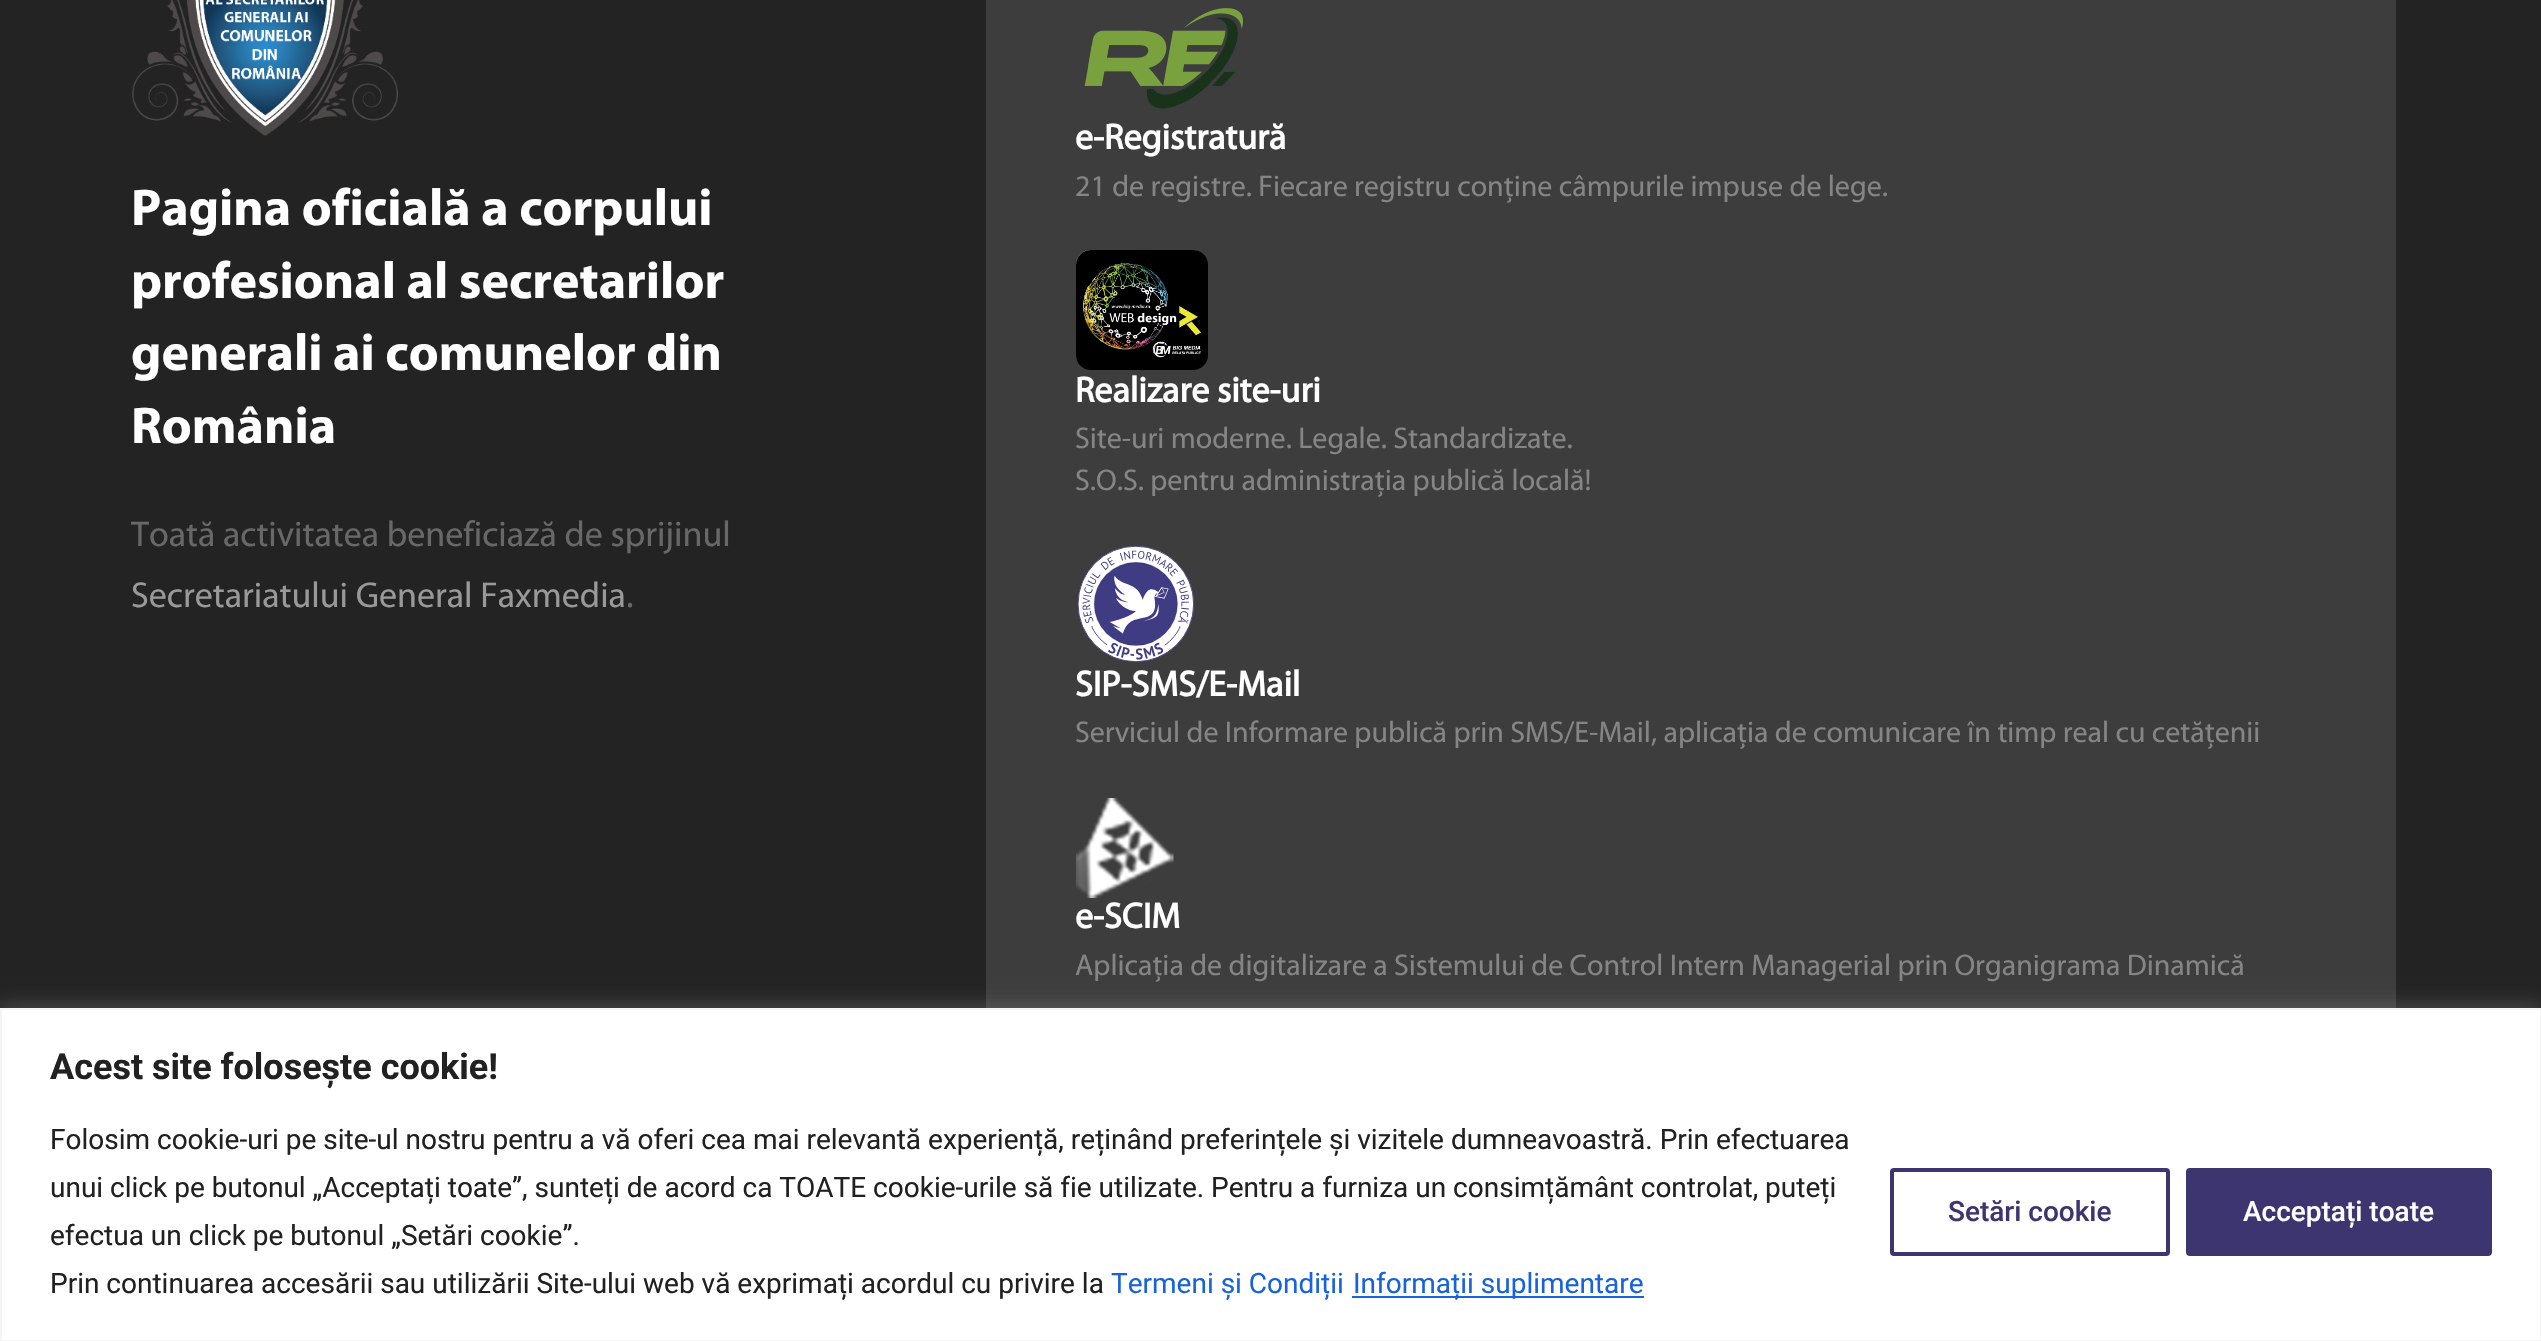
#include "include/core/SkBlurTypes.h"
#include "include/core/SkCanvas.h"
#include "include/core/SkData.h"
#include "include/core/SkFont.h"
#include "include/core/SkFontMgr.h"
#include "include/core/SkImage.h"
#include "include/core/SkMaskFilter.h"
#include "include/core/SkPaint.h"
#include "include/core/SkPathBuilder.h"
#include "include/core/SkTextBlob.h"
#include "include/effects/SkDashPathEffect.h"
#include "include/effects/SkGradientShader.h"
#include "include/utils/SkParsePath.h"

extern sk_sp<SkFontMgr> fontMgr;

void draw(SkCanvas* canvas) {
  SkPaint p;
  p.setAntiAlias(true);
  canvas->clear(SkColorSetRGB(35, 35, 35));
  canvas->drawImageRect(SkImages::DeferredFromEncodedData(SkData::MakeFromFileName("images/1.png")), SkRect::MakeLTRB(132, 0, 398, 136), SkSamplingOptions());
  p.setColor(SkColorSetRGB(61, 61, 61));
  canvas->drawRect(SkRect::MakeLTRB(986, 0, 2396, 1008), p);
  canvas->drawImageRect(SkImages::DeferredFromEncodedData(SkData::MakeFromFileName("images/2.png")), SkRect::MakeLTRB(1084, 8, 1243, 109), SkSamplingOptions());
  canvas->drawImageRect(SkImages::DeferredFromEncodedData(SkData::MakeFromFileName("images/3.png")), SkRect::MakeLTRB(1076, 250, 1208, 370), SkSamplingOptions());
  canvas->drawImageRect(SkImages::DeferredFromEncodedData(SkData::MakeFromFileName("images/4.png")), SkRect::MakeLTRB(1077, 545, 1195, 663), SkSamplingOptions());
  canvas->drawImageRect(SkImages::DeferredFromEncodedData(SkData::MakeFromFileName("images/5.png")), SkRect::MakeLTRB(1076, 798, 1174, 898), SkSamplingOptions());
  p.setColor(SkColorSetARGB(77, 172, 171, 171));
  p.setMaskFilter(SkMaskFilter::MakeBlur(kNormal_SkBlurStyle, 10));
  canvas->drawRect(SkRect::MakeLTRB(0, 1006, 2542, 1340), p);
  p.setMaskFilter(nullptr);
  p.setColor(SK_ColorWHITE);
  canvas->drawRect(SkRect::MakeLTRB(1, 1009, 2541, 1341), p);
  p.setStyle(SkPaint::kStroke_Style);
  p.setStrokeWidth(2);
  p.setColor(SkColorSetRGB(244, 244, 244));
  canvas->drawRect(SkRect::MakeLTRB(1, 1009, 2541, 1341), p);
  p.setStyle(SkPaint::kFill_Style);
  p.setColor(SkColorSetRGB(24, 99, 220));
  canvas->drawRect(SkRect::MakeLTRB(1352, 1296, 1644, 1298), p);
  p.setStyle(SkPaint::kStroke_Style);
  p.setStrokeWidth(4);
  p.setColor(SkColorSetRGB(61, 53, 111));
  canvas->drawRoundRect(SkRect::MakeLTRB(1892, 1170, 2168, 1254), 2, 2, p);
  p.setStyle(SkPaint::kFill_Style);
  canvas->drawRoundRect(SkRect::MakeLTRB(2188, 1170, 2490, 1254), 2, 2, p);
  p.setStyle(SkPaint::kStroke_Style);
  canvas->drawRoundRect(SkRect::MakeLTRB(2188, 1170, 2490, 1254), 2, 2, p);
  SkFont font1(fontMgr->matchFamilyStyle("Myriad", SkFontStyle::Bold()), 52);
  font1.setSubpixel(true);
  p.setStyle(SkPaint::kFill_Style);
  p.setColor(SK_ColorWHITE);
  canvas->drawString("Pagina oficială a corpului", 131, 225, font1, p);
  canvas->drawString("profesional al secretarilor", 131, 298, font1, p);
  canvas->drawString("generali ai comunelor din", 131, 370, font1, p);
  canvas->drawString("România", 131, 443, font1, p);
  SkFont font2(fontMgr->matchFamilyStyle("Myriad", SkFontStyle::Normal()), 36);
  font2.setSubpixel(true);
  p.setColor(SkColorSetRGB(104, 104, 104));
  canvas->drawString("Toată activitatea beneficiază de sprijinul", 131, 546, font2, p);
  p.setColor(SkColorSetRGB(153, 153, 153));
  canvas->drawString("Secretariatului General Faxmedia", 131, 607, font2, p);
  p.setColor(SkColorSetRGB(104, 104, 104));
  canvas->drawString(".", 626, 607, font2, p);
  SkFont font3(fontMgr->matchFamilyStyle("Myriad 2", SkFontStyle::Bold()), 36);
  font3.setSubpixel(true);
  p.setColor(SK_ColorWHITE);
  canvas->drawString("e-Registratură", 1075, 149, font3, p);
  SkFont font4(fontMgr->matchFamilyStyle("Myriad", SkFontStyle::Normal()), 30);
  font4.setSubpixel(true);
  p.setColor(SkColorSetRGB(133, 133, 133));
  canvas->drawString("21 de registre. Fiecare registru conține câmpurile impuse de lege.", 1075, 196, font4, p);
  p.setColor(SK_ColorWHITE);
  canvas->drawString("Realizare site-uri", 1075, 402, font3, p);
  p.setColor(SkColorSetRGB(133, 133, 133));
  canvas->drawString("Site-uri moderne. Legale. Standardizate.", 1075, 448, font4, p);
  canvas->drawString("S.O.S. pentru administrația publică locală!", 1075, 490, font4, p);
  p.setColor(SK_ColorWHITE);
  canvas->drawString("SIP-SMS/E-Mail", 1075, 696, font3, p);
  p.setColor(SkColorSetRGB(133, 133, 133));
  canvas->drawString("Serviciul de Informare publică prin SMS/E-Mail, aplicația de comunicare în timp real cu cetățenii", 1075, 742, font4, p);
  p.setColor(SK_ColorWHITE);
  canvas->drawString("e-SCIM", 1075, 928, font3, p);
  p.setColor(SkColorSetRGB(133, 133, 133));
  canvas->drawString("Aplicația de digitalizare a Sistemului de Control Intern Managerial prin Organigrama Dinamică", 1075, 975, font4, p);
  SkFont font5(fontMgr->matchFamilyStyle("Roboto", SkFontStyle::Bold()), 36);
  font5.setSubpixel(true);
  p.setColor(SkColorSetRGB(33, 33, 33));
  canvas->drawString("Acest site folosește cookie!", 50, 1079, font5, p);
  SkFont font6(fontMgr->matchFamilyStyle("Roboto", SkFontStyle::Normal()), 28);
  font6.setSubpixel(true);
  canvas->drawString("Folosim cookie-uri pe site-ul nostru pentru a vă oferi cea mai relevantă experiență, reținând preferințele și vizitele dumneavoastră. Prin efectuarea", 50, 1149, font6, p);
  canvas->drawString("unui click pe butonul „Acceptați toate”, sunteți de acord ca TOATE cookie-urile să fie utilizate. Pentru a furniza un consimțământ controlat, puteți", 50, 1197, font6, p);
  canvas->drawString("efectua un click pe butonul „Setări cookie”.", 50, 1245, font6, p);
  canvas->drawString("Prin continuarea accesării sau utilizării Site-ului web vă exprimați acordul cu privire la", 50, 1293, font6, p);
  p.setColor(SkColorSetRGB(24, 99, 220));
  canvas->drawString("Termeni și Condiții", 1111, 1293, font6, p);
  canvas->drawString("Informații suplimentare", 1353, 1293, font6, p);
  SkFont font7(fontMgr->matchFamilyStyle("Roboto", SkFontStyle(500, SkFontStyle::kNormal_Width, SkFontStyle::kUpright_Slant)), 28);
  font7.setSubpixel(true);
  p.setColor(SkColorSetRGB(61, 53, 111));
  canvas->drawString("Setări cookie", 1948, 1221, font7, p);
  p.setColor(SK_ColorWHITE);
  canvas->drawString("Acceptați toate", 2243, 1221, font7, p);
}
